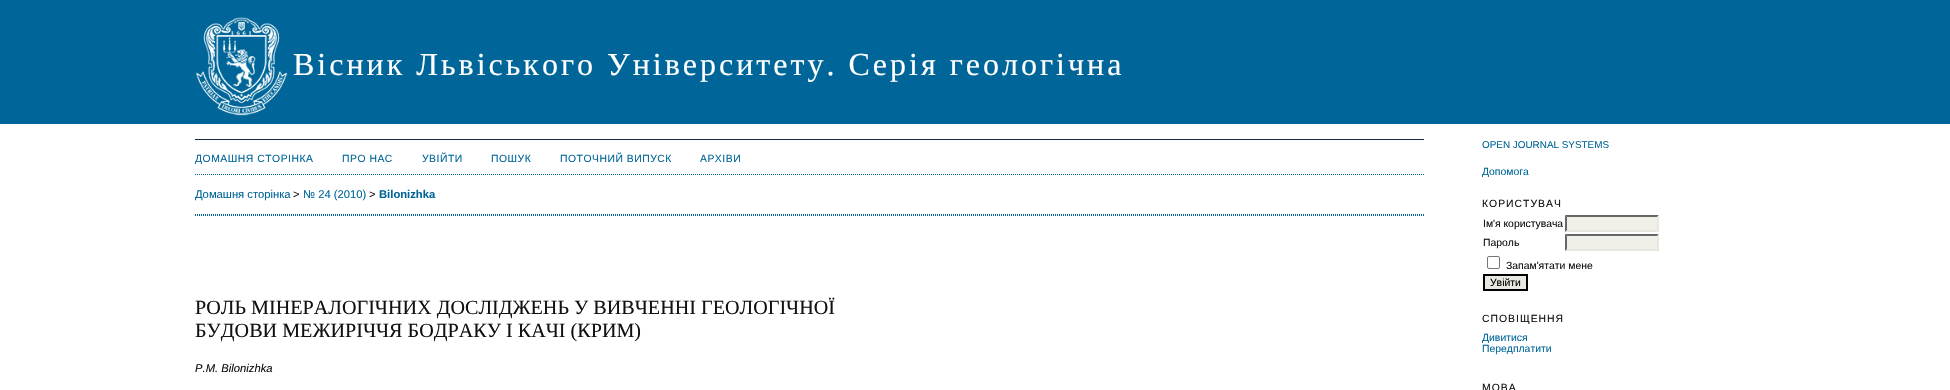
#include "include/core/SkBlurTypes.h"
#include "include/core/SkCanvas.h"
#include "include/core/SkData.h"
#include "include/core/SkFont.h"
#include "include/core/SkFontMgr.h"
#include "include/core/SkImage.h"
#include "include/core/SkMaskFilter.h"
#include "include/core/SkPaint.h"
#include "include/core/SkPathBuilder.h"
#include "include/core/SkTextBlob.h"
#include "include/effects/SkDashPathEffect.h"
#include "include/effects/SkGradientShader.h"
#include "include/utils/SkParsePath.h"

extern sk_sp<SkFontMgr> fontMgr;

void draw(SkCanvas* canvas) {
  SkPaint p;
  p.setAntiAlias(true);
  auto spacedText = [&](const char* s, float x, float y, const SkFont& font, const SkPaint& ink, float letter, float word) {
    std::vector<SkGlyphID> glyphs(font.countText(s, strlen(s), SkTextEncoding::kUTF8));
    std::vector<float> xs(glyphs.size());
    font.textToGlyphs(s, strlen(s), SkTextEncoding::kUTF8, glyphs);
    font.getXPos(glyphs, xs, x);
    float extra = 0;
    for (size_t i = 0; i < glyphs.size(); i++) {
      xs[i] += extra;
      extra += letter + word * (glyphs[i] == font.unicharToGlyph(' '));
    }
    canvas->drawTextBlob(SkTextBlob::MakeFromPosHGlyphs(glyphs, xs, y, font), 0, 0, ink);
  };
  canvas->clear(SK_ColorWHITE);
  p.setColor(SkColorSetRGB(0, 102, 153));
  canvas->drawRect(SkRect::MakeLTRB(0, 0, 1950, 124), p);
  canvas->drawImageRect(SkImages::DeferredFromEncodedData(SkData::MakeFromFileName("images/1.png")), SkRect::MakeLTRB(196, 17, 288, 116), SkSamplingOptions());
  p.setColor(SkColorSetRGB(26, 41, 74));
  canvas->drawRect(SkRect::MakeLTRB(195, 139, 1424, 140), p);
  p.setStyle(SkPaint::kStroke_Style);
  p.setStrokeWidth(1);
  p.setColor(SkColorSetRGB(0, 102, 153));
  p.setPathEffect(SkDashPathEffect::Make({{1, 1}}, 0));
  canvas->drawPath(SkPathBuilder().moveTo(195, 174.5f).lineTo(1424, 174.5f).detach(), p);
  p.setPathEffect(nullptr);
  p.setPathEffect(SkDashPathEffect::Make({{1, 1}}, 0));
  canvas->drawPath(SkPathBuilder().moveTo(195, 214.5f).lineTo(1424, 214.5f).detach(), p);
  p.setPathEffect(nullptr);
  p.setPathEffect(SkDashPathEffect::Make({{1, 1}}, 0));
  canvas->drawPath(SkPathBuilder().moveTo(195, 215.5f).lineTo(1424, 215.5f).detach(), p);
  p.setPathEffect(nullptr);
  p.setStyle(SkPaint::kFill_Style);
  p.setColor(SkColorSetRGB(240, 240, 232));
  canvas->drawRect(SkRect::MakeLTRB(1565, 215, 1659, 232), p);
  p.setColor(SkColorSetRGB(102, 102, 102));
  canvas->drawPath(SkPathBuilder().moveTo(1565, 215).lineTo(1659, 215).lineTo(1657, 217).lineTo(1567, 217).close().detach(), p);
  p.setColor(SkColorSetRGB(232, 232, 225));
  canvas->drawPath(SkPathBuilder().moveTo(1659, 215).lineTo(1659, 232).lineTo(1657, 230).lineTo(1657, 217).close().detach(), p);
  canvas->drawPath(SkPathBuilder().moveTo(1659, 232).lineTo(1565, 232).lineTo(1567, 230).lineTo(1657, 230).close().detach(), p);
  p.setColor(SkColorSetRGB(102, 102, 102));
  canvas->drawPath(SkPathBuilder().moveTo(1565, 232).lineTo(1565, 215).lineTo(1567, 217).lineTo(1567, 230).close().detach(), p);
  p.setColor(SkColorSetRGB(240, 240, 232));
  canvas->drawRect(SkRect::MakeLTRB(1565, 234, 1659, 251), p);
  p.setColor(SkColorSetRGB(102, 102, 102));
  canvas->drawPath(SkPathBuilder().moveTo(1565, 234).lineTo(1659, 234).lineTo(1657, 236).lineTo(1567, 236).close().detach(), p);
  p.setColor(SkColorSetRGB(232, 232, 225));
  canvas->drawPath(SkPathBuilder().moveTo(1659, 234).lineTo(1659, 251).lineTo(1657, 249).lineTo(1657, 236).close().detach(), p);
  canvas->drawPath(SkPathBuilder().moveTo(1659, 251).lineTo(1565, 251).lineTo(1567, 249).lineTo(1657, 249).close().detach(), p);
  p.setColor(SkColorSetRGB(102, 102, 102));
  canvas->drawPath(SkPathBuilder().moveTo(1565, 251).lineTo(1565, 234).lineTo(1567, 236).lineTo(1567, 249).close().detach(), p);
  p.setStyle(SkPaint::kStroke_Style);
  p.setColor(SkColorSetRGB(118, 118, 118));
  canvas->drawRoundRect(SkRect::MakeLTRB(1487.5f, 256.5f, 1499.5f, 268.5f), 1.5f, 1.5f, p);
  p.setStyle(SkPaint::kFill_Style);
  p.setColor(SkColorSetRGB(232, 232, 225));
  canvas->drawRect(SkRect::MakeLTRB(1484, 275, 1527, 290), p);
  p.setStyle(SkPaint::kStroke_Style);
  p.setStrokeWidth(2);
  p.setColor(SK_ColorBLACK);
  canvas->drawRect(SkRect::MakeLTRB(1484, 275, 1527, 290), p);
  SkFont font1(fontMgr->matchFamilyStyle("Liberation Serif", SkFontStyle::Normal()), 32);
  font1.setSubpixel(true);
  p.setStyle(SkPaint::kFill_Style);
  p.setColor(SK_ColorWHITE);
  spacedText("Вісник Львіського Університету. Серія геологічна", 293, 75, font1, p, 3, 0);
  SkFont font2(fontMgr->matchFamilyStyle("Liberation Sans", SkFontStyle::Normal()), 10.4f);
  font2.setSubpixel(true);
  p.setColor(SkColorSetRGB(0, 102, 153));
  spacedText("ДОМАШНЯ СТОРІНКА", 195, 162, font2, p, 0.5f, 0);
  spacedText("ПРО НАС", 342, 162, font2, p, 0.5f, 0);
  spacedText("УВІЙТИ", 422, 162, font2, p, 0.5f, 0);
  spacedText("ПОШУК", 491, 162, font2, p, 0.5f, 0);
  spacedText("ПОТОЧНИЙ ВИПУСК", 560, 162, font2, p, 0.5f, 0);
  spacedText("АРХІВИ", 700, 162, font2, p, 0.5f, 0);
  SkFont font3(fontMgr->matchFamilyStyle("Liberation Sans", SkFontStyle::Normal()), 11.25f);
  font3.setSubpixel(true);
  canvas->drawString("Домашня сторінка", 195, 198, font3, p);
  p.setColor(SkColorSetRGB(17, 17, 17));
  canvas->drawString(">", 293, 198, font3, p);
  p.setColor(SkColorSetRGB(0, 102, 153));
  canvas->drawString("№ 24 (2010)", 303, 198, font3, p);
  p.setColor(SkColorSetRGB(17, 17, 17));
  canvas->drawString(">", 369, 198, font3, p);
  SkFont font4(fontMgr->matchFamilyStyle("Liberation Sans", SkFontStyle::Bold()), 11.25f);
  font4.setSubpixel(true);
  p.setColor(SkColorSetRGB(0, 102, 153));
  canvas->drawString("Bilonizhka", 379, 198, font4, p);
  SkFont font5(fontMgr->matchFamilyStyle("Liberation Serif", SkFontStyle::Normal()), 20.15f);
  font5.setSubpixel(true);
  p.setColor(SkColorSetRGB(17, 17, 17));
  canvas->drawString("РОЛЬ МІНЕРАЛОГІЧНИХ ДОСЛІДЖЕНЬ У ВИВЧЕННІ ГЕОЛОГІЧНОЇ", 195, 314, font5, p);
  canvas->drawString("БУДОВИ МЕЖИРІЧЧЯ БОДРАКУ І КАЧІ (КРИМ)", 195, 337, font5, p);
  SkFont font6(fontMgr->matchFamilyStyle("Liberation Sans", SkFontStyle::Italic()), 11.25f);
  font6.setSubpixel(true);
  canvas->drawString("P.M. Bilonizhka", 195, 372, font6, p);
  SkFont font7(fontMgr->matchFamilyStyle("Liberation Sans", SkFontStyle::Normal()), 9.9f);
  font7.setSubpixel(true);
  p.setColor(SkColorSetRGB(0, 102, 153));
  canvas->drawString("OPEN JOURNAL SYSTEMS", 1482, 148, font7, p);
  canvas->drawString("Допомога", 1482, 175, font2, p);
  p.setColor(SkColorSetRGB(17, 17, 17));
  spacedText("КОРИСТУВАЧ", 1482, 207, font2, p, 1, 0);
  canvas->drawString("Ім'я користувача", 1483, 227, font2, p);
  canvas->drawString("Пароль", 1483, 246, font2, p);
  canvas->drawString("Запам'ятати мене", 1506, 269, font2, p);
  p.setColor(SK_ColorBLACK);
  canvas->drawString("Увійти", 1490, 286, font2, p);
  p.setColor(SkColorSetRGB(17, 17, 17));
  spacedText("СПОВІЩЕННЯ", 1482, 322, font2, p, 1, 0);
  p.setColor(SkColorSetRGB(0, 102, 153));
  canvas->drawString("Дивитися", 1482, 341, font2, p);
  canvas->drawString("Передплатити", 1482, 352, font2, p);
  p.setColor(SkColorSetRGB(17, 17, 17));
  spacedText("МОВА", 1482, 391, font2, p, 1, 0);
}
